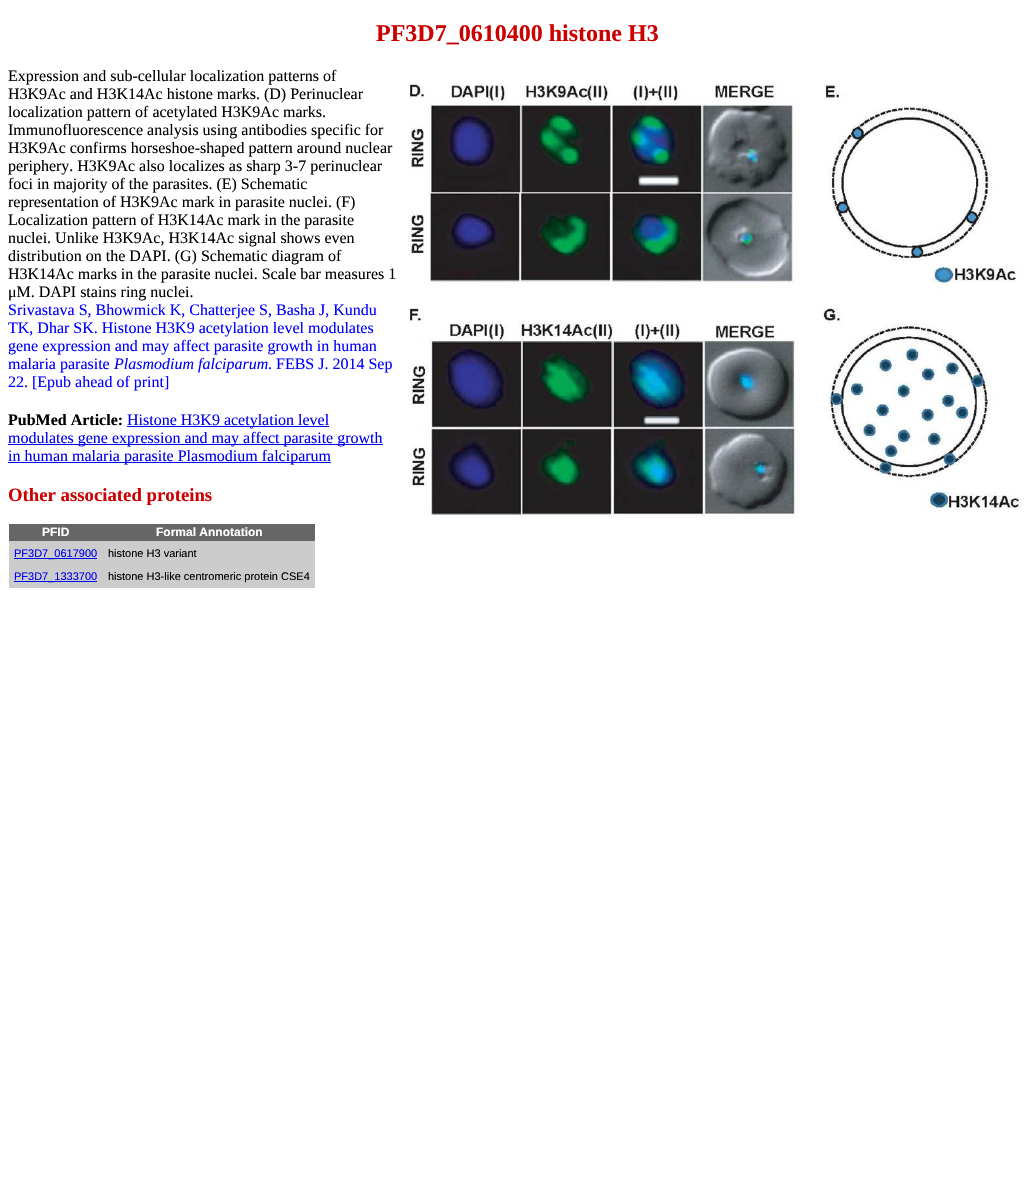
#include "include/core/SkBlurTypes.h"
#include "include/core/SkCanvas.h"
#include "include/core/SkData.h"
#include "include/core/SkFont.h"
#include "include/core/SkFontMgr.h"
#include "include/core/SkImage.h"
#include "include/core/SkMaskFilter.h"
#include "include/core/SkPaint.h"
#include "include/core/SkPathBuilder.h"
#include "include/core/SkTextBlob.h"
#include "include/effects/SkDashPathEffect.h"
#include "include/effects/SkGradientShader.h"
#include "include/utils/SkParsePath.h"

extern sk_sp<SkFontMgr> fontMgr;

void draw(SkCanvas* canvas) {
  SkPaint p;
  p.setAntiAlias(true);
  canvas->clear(SK_ColorWHITE);
  p.setColor(SkColorSetRGB(0, 0, 238));
  canvas->drawRect(SkRect::MakeLTRB(127, 426, 329, 427), p);
  canvas->drawRect(SkRect::MakeLTRB(8, 444, 383, 445), p);
  canvas->drawRect(SkRect::MakeLTRB(8, 462, 331, 463), p);
  p.setColor(SkColorSetRGB(102, 102, 102));
  canvas->drawRect(SkRect::MakeLTRB(9, 524, 315, 541), p);
  p.setColor(SkColorSetRGB(204, 204, 204));
  canvas->drawRect(SkRect::MakeLTRB(9, 541, 315, 565), p);
  p.setColor(SkColorSetRGB(0, 0, 238));
  canvas->drawRect(SkRect::MakeLTRB(14, 558, 97, 559), p);
  p.setColor(SkColorSetRGB(204, 204, 204));
  canvas->drawRect(SkRect::MakeLTRB(9, 565, 315, 588), p);
  p.setColor(SkColorSetRGB(0, 0, 238));
  canvas->drawRect(SkRect::MakeLTRB(14, 581, 97, 582), p);
  canvas->drawImageRect(SkImages::DeferredFromEncodedData(SkData::MakeFromFileName("images/1.png")), SkRect::MakeLTRB(408, 82, 1022, 518), SkSamplingOptions());
  SkFont font1(fontMgr->matchFamilyStyle("Liberation Serif", SkFontStyle::Bold()), 24);
  font1.setSubpixel(true);
  p.setColor(SkColorSetRGB(204, 0, 0));
  canvas->drawString("PF3D7_0610400 histone H3", 376, 41, font1, p);
  SkFont font2(fontMgr->matchFamilyStyle("Liberation Serif", SkFontStyle::Normal()), 16);
  font2.setSubpixel(true);
  p.setColor(SK_ColorBLACK);
  canvas->drawString("Expression and sub-cellular localization patterns of", 8, 81, font2, p);
  canvas->drawString("H3K9Ac and H3K14Ac histone marks. (D) Perinuclear", 8, 99, font2, p);
  canvas->drawString("localization pattern of acetylated H3K9Ac marks.", 8, 117, font2, p);
  canvas->drawString("Immunofluorescence analysis using antibodies specific for", 8, 135, font2, p);
  canvas->drawString("H3K9Ac confirms horseshoe-shaped pattern around nuclear", 8, 153, font2, p);
  canvas->drawString("periphery. H3K9Ac also localizes as sharp 3-7 perinuclear", 8, 171, font2, p);
  canvas->drawString("foci in majority of the parasites. (E) Schematic", 8, 189, font2, p);
  canvas->drawString("representation of H3K9Ac mark in parasite nuclei. (F)", 8, 207, font2, p);
  canvas->drawString("Localization pattern of H3K14Ac mark in the parasite", 8, 225, font2, p);
  canvas->drawString("nuclei. Unlike H3K9Ac, H3K14Ac signal shows even", 8, 243, font2, p);
  canvas->drawString("distribution on the DAPI. (G) Schematic diagram of", 8, 261, font2, p);
  canvas->drawString("H3K14Ac marks in the parasite nuclei. Scale bar measures 1", 8, 279, font2, p);
  canvas->drawString("μM. DAPI stains ring nuclei.", 8, 297, font2, p);
  p.setColor(SkColorSetRGB(0, 0, 255));
  canvas->drawString("Srivastava S, Bhowmick K, Chatterjee S, Basha J, Kundu", 8, 315, font2, p);
  canvas->drawString("TK, Dhar SK. Histone H3K9 acetylation level modulates", 8, 333, font2, p);
  canvas->drawString("gene expression and may affect parasite growth in human", 8, 351, font2, p);
  canvas->drawString("malaria parasite", 8, 369, font2, p);
  SkFont font3(fontMgr->matchFamilyStyle("Liberation Serif", SkFontStyle::Italic()), 16);
  font3.setSubpixel(true);
  canvas->drawString("Plasmodium falciparum", 114, 369, font3, p);
  canvas->drawString(". FEBS J. 2014 Sep", 268, 369, font2, p);
  canvas->drawString("22. [Epub ahead of print]", 8, 387, font2, p);
  SkFont font4(fontMgr->matchFamilyStyle("Liberation Serif", SkFontStyle::Bold()), 16);
  font4.setSubpixel(true);
  p.setColor(SK_ColorBLACK);
  canvas->drawString("PubMed Article:", 8, 425, font4, p);
  p.setColor(SkColorSetRGB(0, 0, 238));
  canvas->drawString("Histone H3K9 acetylation level", 127, 425, font2, p);
  canvas->drawString("modulates gene expression and may affect parasite growth", 8, 443, font2, p);
  canvas->drawString("in human malaria parasite Plasmodium falciparum", 8, 461, font2, p);
  SkFont font5(fontMgr->matchFamilyStyle("Liberation Serif", SkFontStyle::Bold()), 18.75f);
  font5.setSubpixel(true);
  p.setColor(SkColorSetRGB(204, 0, 0));
  canvas->drawString("Other associated proteins", 8, 501, font5, p);
  SkFont font6(fontMgr->matchFamilyStyle("Liberation Sans", SkFontStyle::Bold()), 12);
  font6.setSubpixel(true);
  p.setColor(SK_ColorWHITE);
  canvas->drawString("PFID", 42, 536, font6, p);
  canvas->drawString("Formal Annotation", 156, 536, font6, p);
  SkFont font7(fontMgr->matchFamilyStyle("Liberation Sans", SkFontStyle::Normal()), 11);
  font7.setSubpixel(true);
  p.setColor(SkColorSetRGB(0, 0, 238));
  canvas->drawString("PF3D7_0617900", 14, 557, font7, p);
  p.setColor(SK_ColorBLACK);
  canvas->drawString("histone H3 variant", 108, 557, font7, p);
  p.setColor(SkColorSetRGB(0, 0, 238));
  canvas->drawString("PF3D7_1333700", 14, 580, font7, p);
  p.setColor(SK_ColorBLACK);
  canvas->drawString("histone H3-like centromeric protein CSE4", 108, 580, font7, p);
}
